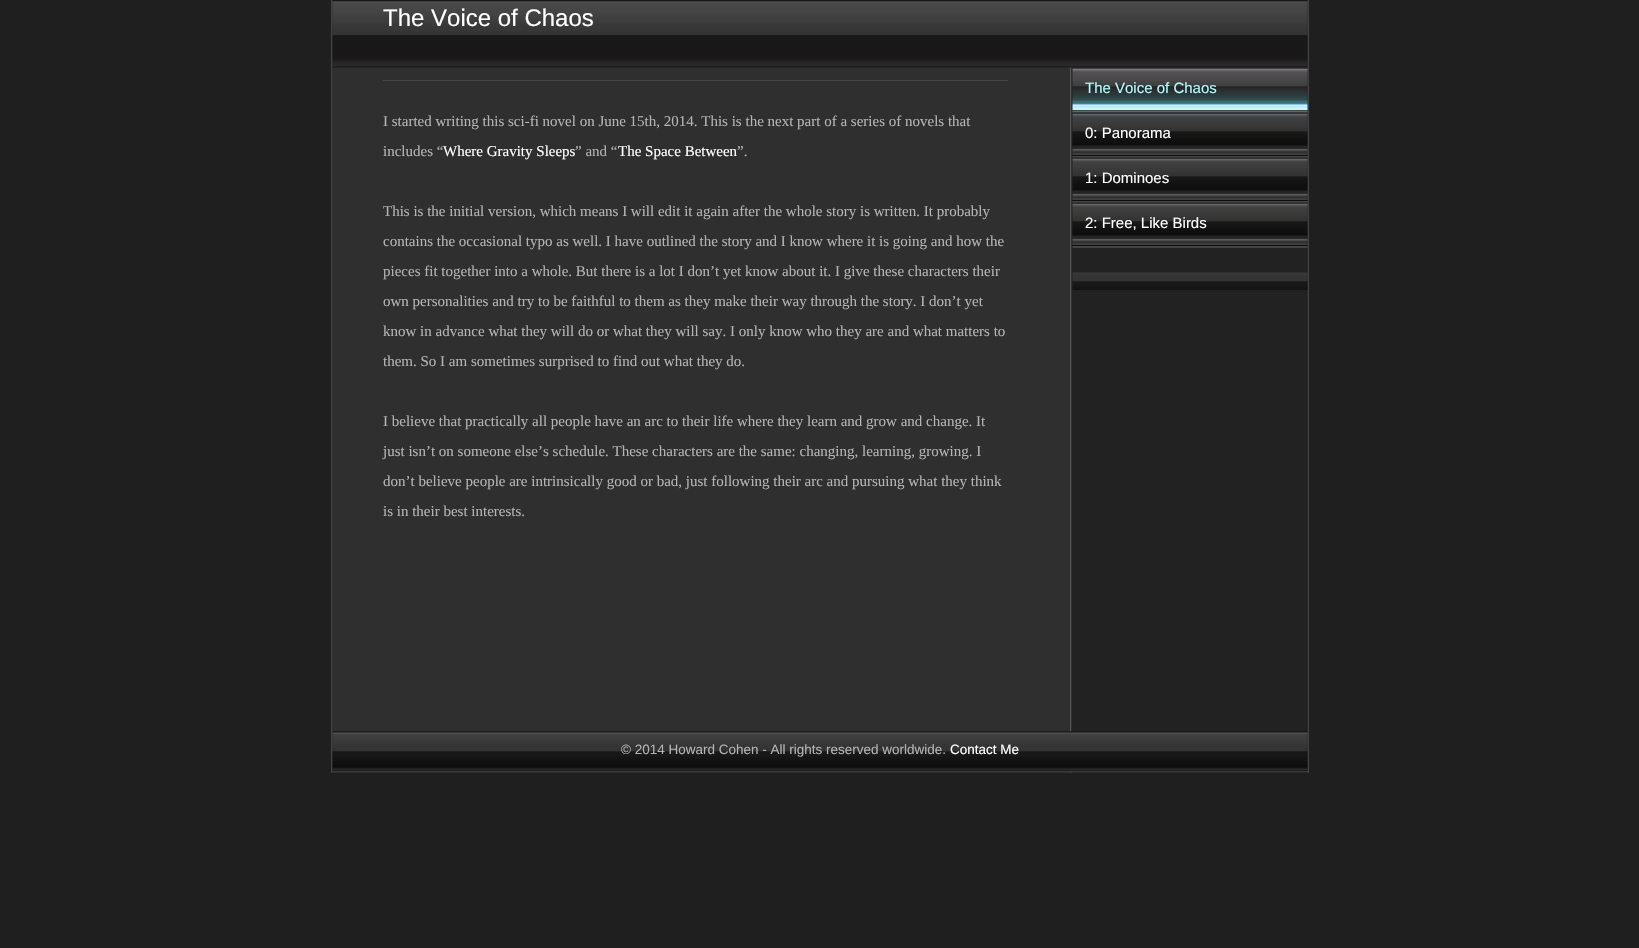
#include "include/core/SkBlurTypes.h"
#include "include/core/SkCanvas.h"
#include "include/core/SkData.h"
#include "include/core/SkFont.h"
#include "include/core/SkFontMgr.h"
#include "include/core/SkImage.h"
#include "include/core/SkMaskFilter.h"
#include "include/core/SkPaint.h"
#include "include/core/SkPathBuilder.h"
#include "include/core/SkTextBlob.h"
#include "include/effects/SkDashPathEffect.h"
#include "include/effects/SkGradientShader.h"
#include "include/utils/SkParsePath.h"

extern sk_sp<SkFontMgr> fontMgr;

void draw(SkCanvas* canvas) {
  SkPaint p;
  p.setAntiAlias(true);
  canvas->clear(SkColorSetRGB(31, 31, 31));
  p.setColor(SkColorSetRGB(47, 47, 47));
  canvas->drawRect(SkRect::MakeLTRB(332, 0, 1308, 773), p);
  canvas->drawImageRect(SkImages::DeferredFromEncodedData(SkData::MakeFromFileName("images/1.png")), SkRect::MakeLTRB(1070, 0, 1308, 773), SkSamplingOptions());
  p.setColor(SkColorSetRGB(68, 68, 68));
  canvas->drawRect(SkRect::MakeLTRB(1308, 0, 1309, 773), p);
  canvas->drawRect(SkRect::MakeLTRB(331, 771, 1309, 772), p);
  canvas->drawRect(SkRect::MakeLTRB(331, 0, 332, 773), p);
  canvas->drawImageRect(SkImages::DeferredFromEncodedData(SkData::MakeFromFileName("images/2.png")), SkRect::MakeLTRB(332, 0, 1308, 68), SkSamplingOptions());
  p.setColor(SkColorSetRGB(69, 69, 69));
  canvas->drawRect(SkRect::MakeLTRB(383, 80, 1008, 81), p);
  canvas->drawImageRect(SkImages::DeferredFromEncodedData(SkData::MakeFromFileName("images/3.png")), SkRect::MakeLTRB(1072, 67, 1308, 113), SkSamplingOptions());
  canvas->drawImageRect(SkImages::DeferredFromEncodedData(SkData::MakeFromFileName("images/4.png")), SkRect::MakeLTRB(1072, 112, 1308, 158), SkSamplingOptions());
  canvas->drawImageRect(SkImages::DeferredFromEncodedData(SkData::MakeFromFileName("images/5.png")), SkRect::MakeLTRB(1072, 157, 1308, 203), SkSamplingOptions());
  canvas->drawImageRect(SkImages::DeferredFromEncodedData(SkData::MakeFromFileName("images/5.png")), SkRect::MakeLTRB(1072, 202, 1308, 248), SkSamplingOptions());
  canvas->drawImageRect(SkImages::DeferredFromEncodedData(SkData::MakeFromFileName("images/6.png")), SkRect::MakeLTRB(1072, 272, 1308, 290), SkSamplingOptions());
  canvas->drawImageRect(SkImages::DeferredFromEncodedData(SkData::MakeFromFileName("images/7.png")), SkRect::MakeLTRB(332, 731, 1308, 772), SkSamplingOptions());
  SkFont font1(fontMgr->matchFamilyStyle("Liberation Sans", SkFontStyle::Normal()), 24);
  font1.setSubpixel(true);
  p.setColor(SK_ColorWHITE);
  canvas->drawString("The Voice of Chaos", 383, 26, font1, p);
  SkFont font2(fontMgr->matchFamilyStyle("Liberation Serif", SkFontStyle::Normal()), 15);
  font2.setSubpixel(true);
  p.setColor(SkColorSetRGB(179, 179, 179));
  canvas->drawString("I started writing this sci-fi novel on June 15th, 2014. This is the next part of a series of novels that", 383, 126, font2, p);
  canvas->drawString("includes “", 383, 156, font2, p);
  p.setColor(SK_ColorWHITE);
  canvas->drawString("Where Gravity Sleeps", 443, 156, font2, p);
  p.setColor(SkColorSetRGB(179, 179, 179));
  canvas->drawString("” and “", 575, 156, font2, p);
  p.setColor(SK_ColorWHITE);
  canvas->drawString("The Space Between", 618, 156, font2, p);
  p.setColor(SkColorSetRGB(179, 179, 179));
  canvas->drawString("”.", 737, 156, font2, p);
  canvas->drawString("This is the initial version, which means I will edit it again after the whole story is written. It probably", 383, 216, font2, p);
  canvas->drawString("contains the occasional typo as well. I have outlined the story and I know where it is going and how the", 383, 246, font2, p);
  canvas->drawString("pieces fit together into a whole. But there is a lot I don’t yet know about it. I give these characters their", 383, 276, font2, p);
  canvas->drawString("own personalities and try to be faithful to them as they make their way through the story. I don’t yet", 383, 306, font2, p);
  canvas->drawString("know in advance what they will do or what they will say. I only know who they are and what matters to", 383, 336, font2, p);
  canvas->drawString("them. So I am sometimes surprised to find out what they do.", 383, 366, font2, p);
  canvas->drawString("I believe that practically all people have an arc to their life where they learn and grow and change. It", 383, 426, font2, p);
  canvas->drawString("just isn’t on someone else’s schedule. These characters are the same: changing, learning, growing. I", 383, 456, font2, p);
  canvas->drawString("don’t believe people are intrinsically good or bad, just following their arc and pursuing what they think", 383, 486, font2, p);
  canvas->drawString("is in their best interests.", 383, 516, font2, p);
  SkFont font3(fontMgr->matchFamilyStyle("Liberation Sans", SkFontStyle::Normal()), 15);
  font3.setSubpixel(true);
  p.setColor(SkColorSetRGB(173, 252, 255));
  canvas->drawString("The Voice of Chaos", 1085, 93, font3, p);
  p.setColor(SK_ColorWHITE);
  canvas->drawString("0: Panorama", 1085, 138, font3, p);
  canvas->drawString("1: Dominoes", 1085, 183, font3, p);
  canvas->drawString("2: Free, Like Birds", 1085, 228, font3, p);
  SkFont font4(fontMgr->matchFamilyStyle("Liberation Sans", SkFontStyle::Normal()), 13.5f);
  font4.setSubpixel(true);
  p.setColor(SkColorSetRGB(179, 179, 179));
  canvas->drawString("© 2014 Howard Cohen - All rights reserved worldwide.", 621, 754, font4, p);
  p.setColor(SK_ColorWHITE);
  canvas->drawString("Contact Me", 950, 754, font4, p);
}
